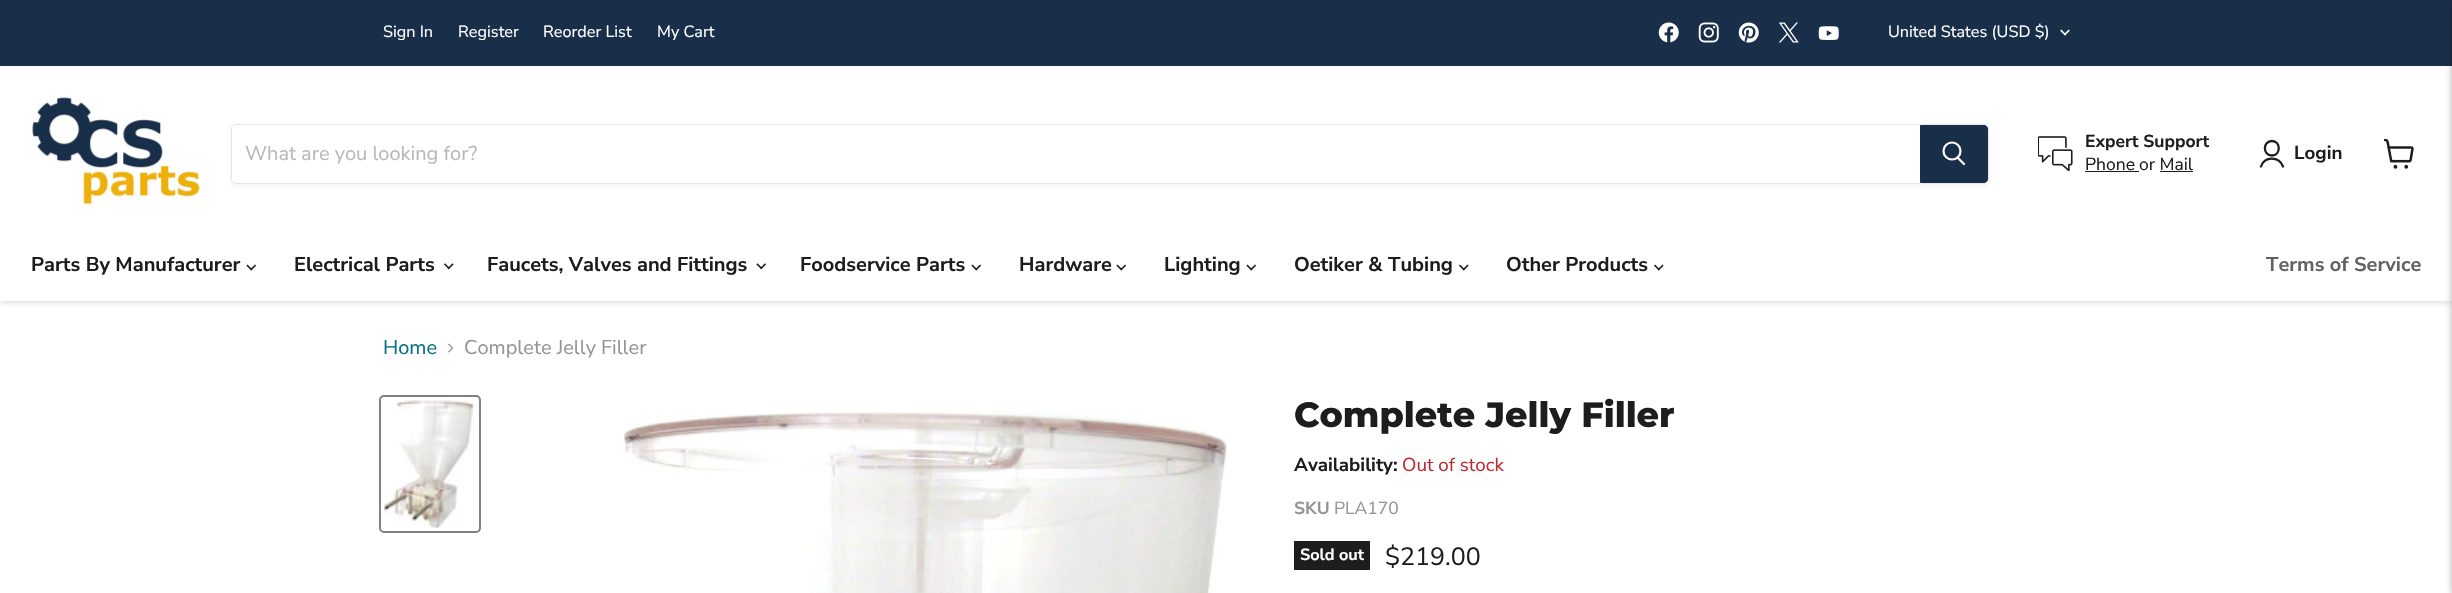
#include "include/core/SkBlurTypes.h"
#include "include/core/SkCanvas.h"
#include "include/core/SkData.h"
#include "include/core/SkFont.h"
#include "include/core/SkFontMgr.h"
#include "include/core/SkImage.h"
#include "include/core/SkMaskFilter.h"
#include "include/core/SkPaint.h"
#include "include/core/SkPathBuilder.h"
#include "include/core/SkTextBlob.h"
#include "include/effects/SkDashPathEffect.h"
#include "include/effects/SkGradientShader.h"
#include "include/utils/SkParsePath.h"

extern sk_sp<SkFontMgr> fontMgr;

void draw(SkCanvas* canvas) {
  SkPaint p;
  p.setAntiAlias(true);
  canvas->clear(SK_ColorWHITE);
  p.setColor(SkColorSetARGB(64, 128, 128, 128));
  p.setMaskFilter(SkMaskFilter::MakeBlur(kNormal_SkBlurStyle, 2.5f));
  canvas->drawRect(SkRect::MakeLTRB(0, 68, 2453, 303), p);
  p.setMaskFilter(nullptr);
  p.setColor(SkColorSetRGB(24, 46, 73));
  canvas->drawRect(SkRect::MakeLTRB(0, 0, 2452, 66), p);
  canvas->drawImageRect(SkImages::DeferredFromEncodedData(SkData::MakeFromFileName("images/1.png")), SkRect::MakeLTRB(1658, 22, 1679, 43), SkSamplingOptions());
  canvas->drawImageRect(SkImages::DeferredFromEncodedData(SkData::MakeFromFileName("images/2.png")), SkRect::MakeLTRB(1698, 22, 1719, 43), SkSamplingOptions());
  canvas->drawImageRect(SkImages::DeferredFromEncodedData(SkData::MakeFromFileName("images/3.png")), SkRect::MakeLTRB(1738, 22, 1759, 43), SkSamplingOptions());
  canvas->drawImageRect(SkImages::DeferredFromEncodedData(SkData::MakeFromFileName("images/4.png")), SkRect::MakeLTRB(1778, 22, 1799, 43), SkSamplingOptions());
  canvas->drawImageRect(SkImages::DeferredFromEncodedData(SkData::MakeFromFileName("images/5.png")), SkRect::MakeLTRB(1818, 26, 1839, 40), SkSamplingOptions());
  canvas->drawImageRect(SkImages::DeferredFromEncodedData(SkData::MakeFromFileName("images/6.png")), SkRect::MakeLTRB(2060, 29, 2070, 36), SkSamplingOptions());
  p.setColor(SK_ColorWHITE);
  canvas->drawRect(SkRect::MakeLTRB(0, 66, 2452, 301), p);
  p.setColor(SkColorSetARGB(128, 0, 0, 0));
  p.setMaskFilter(SkMaskFilter::MakeBlur(kNormal_SkBlurStyle, 4.5f));
  canvas->drawRect(SkRect::MakeLTRB(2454, 0, 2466, 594), p);
  p.setMaskFilter(nullptr);
  canvas->drawImageRect(SkImages::DeferredFromEncodedData(SkData::MakeFromFileName("images/7.png")), SkRect::MakeLTRB(32, 97, 200, 205), SkSamplingOptions());
  canvas->save();
  canvas->clipPath(SkPathBuilder(SkPathFillType::kEvenOdd).moveTo(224, 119).lineTo(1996, 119).lineTo(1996, 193).lineTo(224, 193).close().moveTo(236, 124).lineTo(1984, 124).cubicTo(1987, 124, 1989, 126, 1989, 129).lineTo(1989, 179).cubicTo(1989, 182, 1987, 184, 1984, 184).lineTo(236, 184).cubicTo(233, 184, 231, 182, 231, 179).lineTo(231, 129).cubicTo(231, 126, 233, 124, 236, 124).close().detach(), true);
  p.setColor(SkColorSetARGB(28, 128, 128, 128));
  p.setMaskFilter(SkMaskFilter::MakeBlur(kNormal_SkBlurStyle, 2));
  canvas->drawRoundRect(SkRect::MakeLTRB(231, 126, 1989, 186), 5, 5, p);
  p.setMaskFilter(nullptr);
  canvas->restore();
  p.setStyle(SkPaint::kStroke_Style);
  p.setStrokeWidth(1);
  p.setColor(SkColorSetARGB(51, 128, 128, 128));
  canvas->drawRoundRect(SkRect::MakeLTRB(231.5f, 124.5f, 1988.5f, 183.5f), 4.5f, 4.5f, p);
  p.setStyle(SkPaint::kFill_Style);
  p.setColor(SkColorSetRGB(24, 46, 73));
  canvas->drawPath(SkPathBuilder().moveTo(1920.5f, 125.5f).lineTo(1984, 125.5f).cubicTo(1986, 125.5f, 1987.5f, 127, 1987.5f, 129).lineTo(1987.5f, 179).cubicTo(1987.5f, 181, 1986, 182.5f, 1984, 182.5f).lineTo(1920.5f, 182.5f).close().detach(), p);
  p.setStyle(SkPaint::kStroke_Style);
  canvas->drawPath(SkPathBuilder().moveTo(1920.5f, 125.5f).lineTo(1984, 125.5f).cubicTo(1986, 125.5f, 1987.5f, 127, 1987.5f, 129).lineTo(1987.5f, 179).cubicTo(1987.5f, 181, 1986, 182.5f, 1984, 182.5f).lineTo(1920.5f, 182.5f).close().detach(), p);
  p.setStrokeWidth(2.2f);
  p.setStrokeCap(SkPaint::kRound_Cap);
  p.setColor(SK_ColorWHITE);
  canvas->drawPath(SkPathBuilder().moveTo(1964, 164).lineTo(1958, 158).detach(), p);
  p.setStrokeCap(SkPaint::kButt_Cap);
  canvas->drawCircle(1952, 151, 8.5f, p);
  canvas->drawImageRect(SkImages::DeferredFromEncodedData(SkData::MakeFromFileName("images/8.png")), SkRect::MakeLTRB(2038, 136, 2073, 171), SkSamplingOptions());
  p.setStyle(SkPaint::kFill_Style);
  p.setColor(SkColorSetRGB(29, 29, 29));
  canvas->drawRect(SkRect::MakeLTRB(2085, 171, 2139, 172), p);
  canvas->drawRect(SkRect::MakeLTRB(2160, 171, 2193, 172), p);
  p.setStyle(SkPaint::kStroke_Style);
  p.setStrokeWidth(2.3f);
  p.setStrokeCap(SkPaint::kRound_Cap);
  p.setStrokeJoin(SkPaint::kRound_Join);
  canvas->drawPath(SkPathBuilder().moveTo(2272, 155.5f).cubicTo(2281, 155.5f, 2281, 141, 2272, 141).cubicTo(2262.5f, 141, 2262.5f, 155.5f, 2272, 155.5f).close().moveTo(2283, 166.5f).cubicTo(2279, 156, 2264.5f, 156, 2261, 166.5f).detach(), p);
  canvas->drawImageRect(SkImages::DeferredFromEncodedData(SkData::MakeFromFileName("images/9.png")), SkRect::MakeLTRB(2384, 139, 2414, 169), SkSamplingOptions());
  canvas->drawImageRect(SkImages::DeferredFromEncodedData(SkData::MakeFromFileName("images/10.png")), SkRect::MakeLTRB(246, 264, 256, 271), SkSamplingOptions());
  canvas->drawImageRect(SkImages::DeferredFromEncodedData(SkData::MakeFromFileName("images/11.png")), SkRect::MakeLTRB(444, 263, 454, 270), SkSamplingOptions());
  canvas->drawImageRect(SkImages::DeferredFromEncodedData(SkData::MakeFromFileName("images/12.png")), SkRect::MakeLTRB(756, 263, 766, 270), SkSamplingOptions());
  canvas->drawImageRect(SkImages::DeferredFromEncodedData(SkData::MakeFromFileName("images/10.png")), SkRect::MakeLTRB(971, 264, 981, 271), SkSamplingOptions());
  canvas->drawImageRect(SkImages::DeferredFromEncodedData(SkData::MakeFromFileName("images/10.png")), SkRect::MakeLTRB(1116, 264, 1126, 271), SkSamplingOptions());
  canvas->drawImageRect(SkImages::DeferredFromEncodedData(SkData::MakeFromFileName("images/10.png")), SkRect::MakeLTRB(1246, 264, 1256, 271), SkSamplingOptions());
  canvas->drawImageRect(SkImages::DeferredFromEncodedData(SkData::MakeFromFileName("images/13.png")), SkRect::MakeLTRB(1459, 264, 1469, 271), SkSamplingOptions());
  canvas->drawImageRect(SkImages::DeferredFromEncodedData(SkData::MakeFromFileName("images/13.png")), SkRect::MakeLTRB(1654, 264, 1664, 271), SkSamplingOptions());
  canvas->drawImageRect(SkImages::DeferredFromEncodedData(SkData::MakeFromFileName("images/14.png")), SkRect::MakeLTRB(448, 343, 454, 353), SkSamplingOptions());
  p.setStrokeWidth(2);
  p.setStrokeCap(SkPaint::kButt_Cap);
  p.setStrokeJoin(SkPaint::kMiter_Join);
  p.setColor(SkColorSetRGB(129, 129, 129));
  canvas->drawRoundRect(SkRect::MakeLTRB(380, 396, 480, 532), 4, 4, p);
  canvas->drawImageRect(SkImages::DeferredFromEncodedData(SkData::MakeFromFileName("images/15.png")), SkRect::MakeLTRB(383, 399, 475, 528), SkSamplingOptions());
  canvas->drawImageRect(SkImages::DeferredFromEncodedData(SkData::MakeFromFileName("images/16.png")), SkRect::MakeLTRB(623, 409, 1227, 593), SkSamplingOptions());
  p.setStyle(SkPaint::kFill_Style);
  p.setColor(SkColorSetRGB(29, 29, 29));
  canvas->drawRect(SkRect::MakeLTRB(1294, 541, 1370, 570), p);
  SkFont font1(fontMgr->matchFamilyStyle("Nunito Sans", SkFontStyle::Normal()), 16.25f);
  font1.setSubpixel(true);
  p.setColor(SK_ColorWHITE);
  canvas->drawString("Sign In", 383, 37, font1, p);
  canvas->drawString("Register", 458, 37, font1, p);
  canvas->drawString("Reorder List", 543, 37, font1, p);
  canvas->drawString("My Cart", 657, 37, font1, p);
  canvas->drawString("United States (USD $)", 1888, 37, font1, p);
  SkFont font2(fontMgr->matchFamilyStyle("Nunito Sans", SkFontStyle::Normal()), 20);
  font2.setSubpixel(true);
  p.setColor(SkColorSetRGB(184, 184, 184));
  canvas->drawString("What are you looking for?", 245, 160, font2, p);
  SkFont font3(fontMgr->matchFamilyStyle("Nunito Sans", SkFontStyle::Bold()), 17.5f);
  font3.setSubpixel(true);
  p.setColor(SkColorSetRGB(29, 29, 29));
  canvas->drawString("Expert Support", 2085, 147, font3, p);
  SkFont font4(fontMgr->matchFamilyStyle("Nunito Sans", SkFontStyle::Normal()), 17.5f);
  font4.setSubpixel(true);
  canvas->drawString("Phone", 2085, 170, font4, p);
  canvas->drawString("or Mail", 2139, 170, font4, p);
  SkFont font5(fontMgr->matchFamilyStyle("Nunito Sans", SkFontStyle::Bold()), 18.75f);
  font5.setSubpixel(true);
  canvas->drawString("Login", 2294, 159, font5, p);
  SkFont font6(fontMgr->matchFamilyStyle("Nunito Sans", SkFontStyle::Bold()), 20);
  font6.setSubpixel(true);
  canvas->drawString("Parts By Manufacturer", 31, 271, font6, p);
  canvas->drawString("Electrical Parts", 294, 271, font6, p);
  canvas->drawString("Faucets, Valves and Fittings", 487, 271, font6, p);
  canvas->drawString("Foodservice Parts", 800, 271, font6, p);
  canvas->drawString("Hardware", 1019, 271, font6, p);
  canvas->drawString("Lighting", 1164, 271, font6, p);
  canvas->drawString("Oetiker & Tubing", 1294, 271, font6, p);
  canvas->drawString("Other Products", 1506, 271, font6, p);
  p.setColor(SkColorSetRGB(97, 97, 97));
  canvas->drawString("Terms of Service", 2266, 271, font6, p);
  p.setColor(SkColorSetRGB(4, 110, 130));
  canvas->drawString("Home", 383, 354, font2, p);
  p.setColor(SkColorSetRGB(148, 148, 148));
  canvas->drawString("Complete Jelly Filler", 464, 354, font2, p);
  SkFont font7(fontMgr->matchFamilyStyle("Montserrat", SkFontStyle(800, SkFontStyle::kNormal_Width, SkFontStyle::kUpright_Slant)), 35);
  font7.setSubpixel(true);
  p.setColor(SkColorSetRGB(29, 29, 29));
  canvas->drawString("Complete Jelly Filler", 1294, 427, font7, p);
  canvas->drawString("Availability:", 1294, 471, font5, p);
  SkFont font8(fontMgr->matchFamilyStyle("Nunito Sans", SkFontStyle::Normal()), 18.75f);
  font8.setSubpixel(true);
  p.setColor(SkColorSetRGB(191, 38, 47));
  canvas->drawString("Out of stock", 1402, 471, font8, p);
  p.setColor(SkColorSetRGB(148, 148, 148));
  canvas->drawString("SKU", 1294, 514, font3, p);
  canvas->drawString("PLA170", 1334, 514, font4, p);
  SkFont font9(fontMgr->matchFamilyStyle("Nunito Sans", SkFontStyle::Bold()), 16.25f);
  font9.setSubpixel(true);
  p.setColor(SK_ColorWHITE);
  canvas->drawString("Sold out", 1300, 560, font9, p);
  SkFont font10(fontMgr->matchFamilyStyle("Nunito Sans", SkFontStyle::Normal()), 25);
  font10.setSubpixel(true);
  p.setColor(SkColorSetRGB(29, 29, 29));
  canvas->drawString("$219.00", 1385, 565, font10, p);
}
